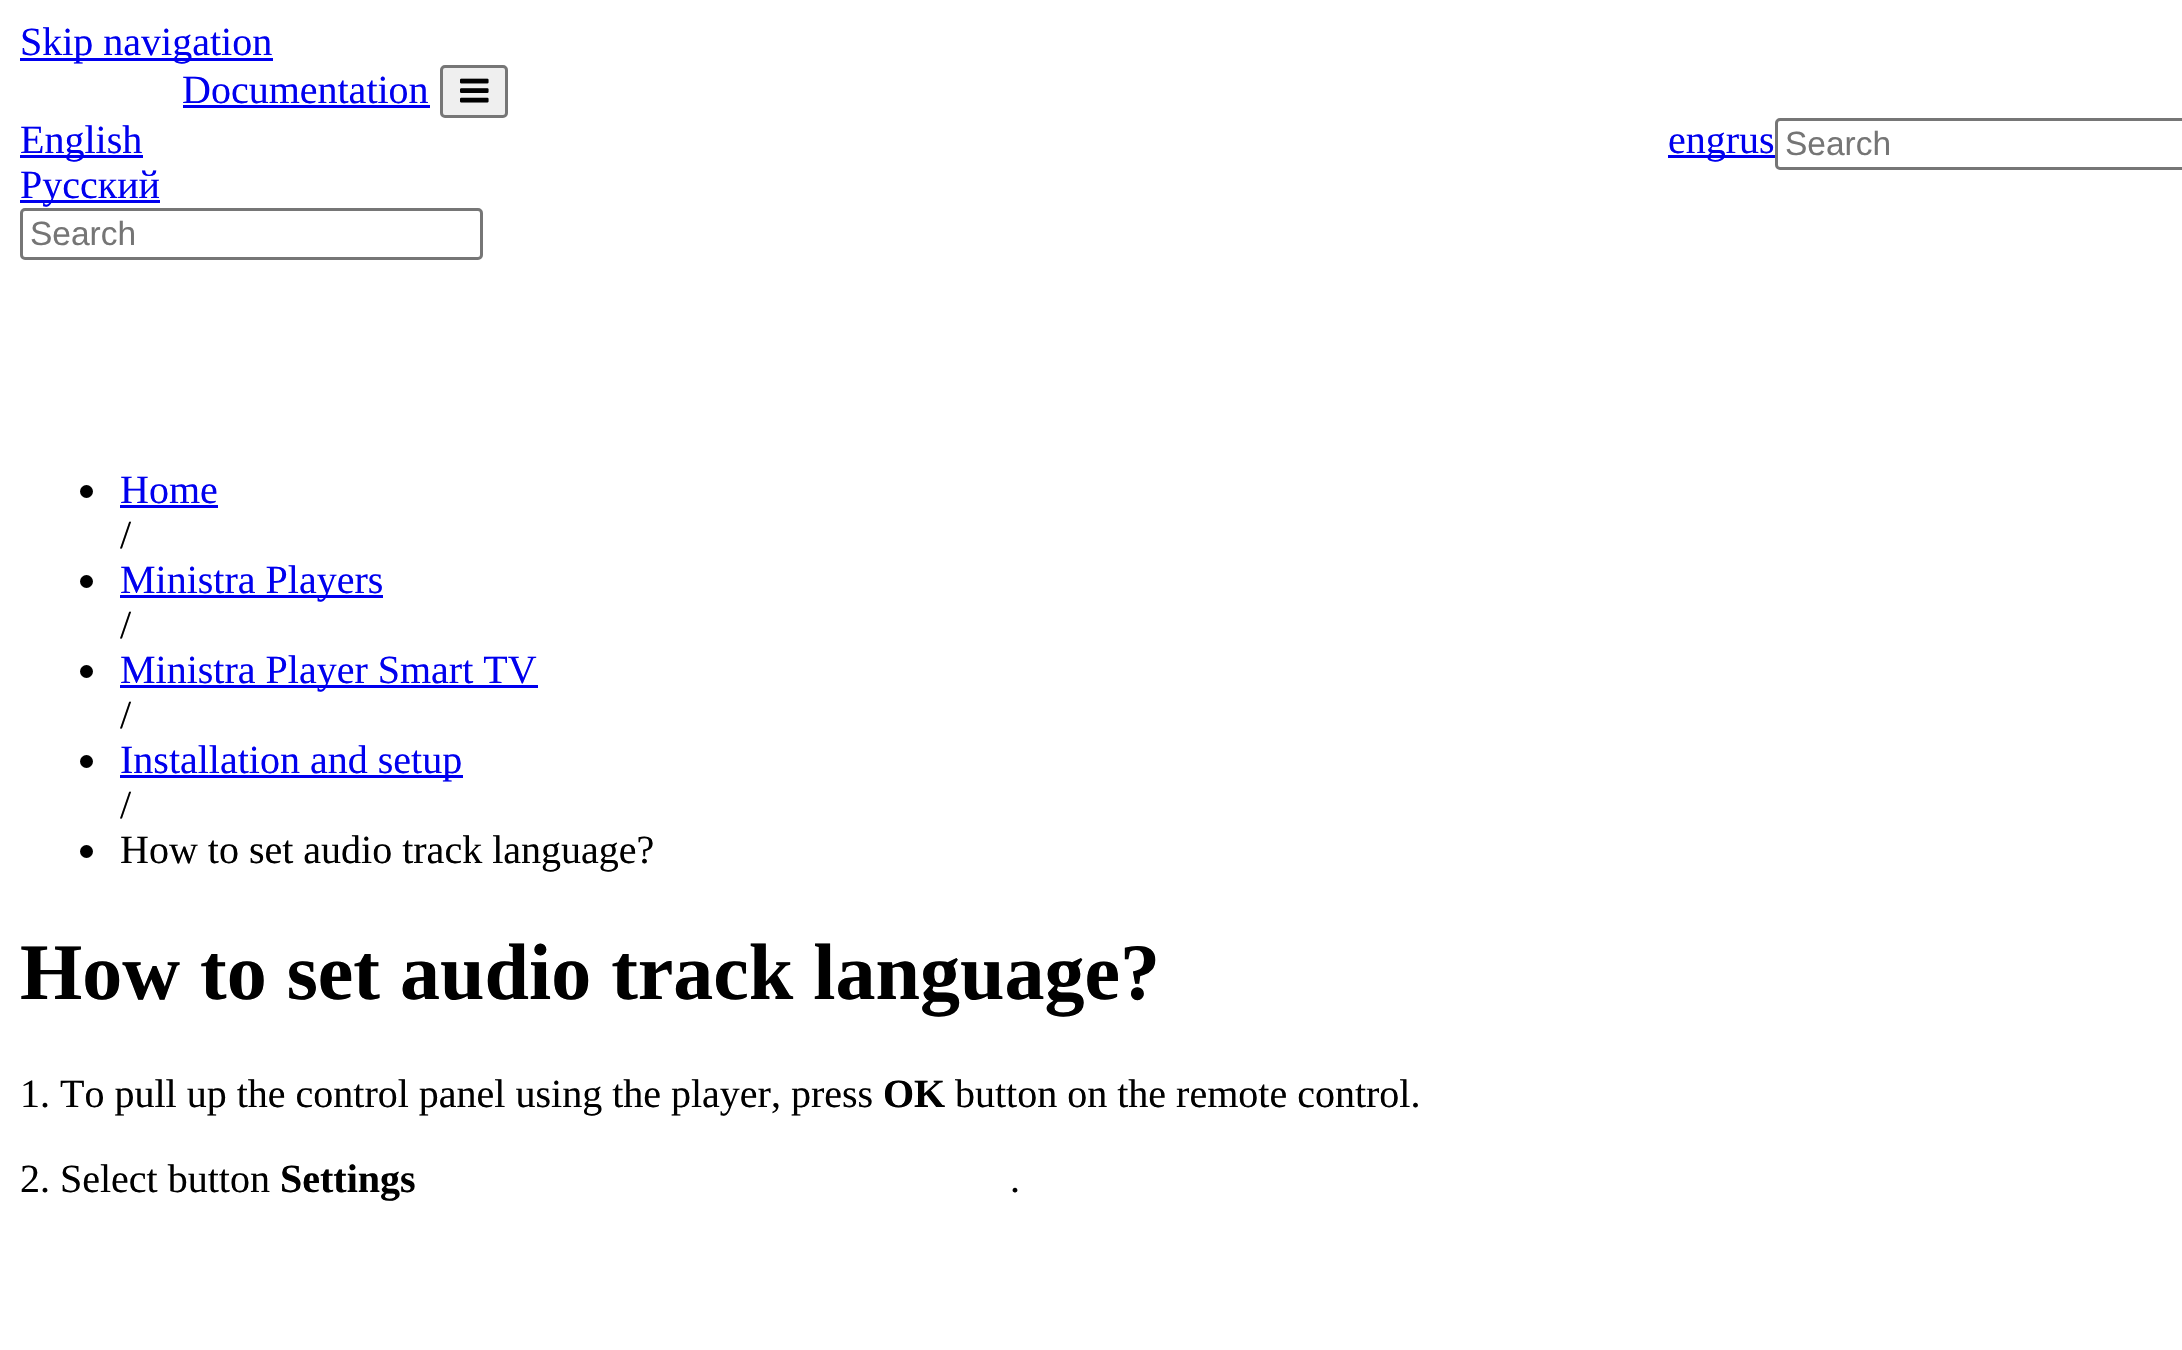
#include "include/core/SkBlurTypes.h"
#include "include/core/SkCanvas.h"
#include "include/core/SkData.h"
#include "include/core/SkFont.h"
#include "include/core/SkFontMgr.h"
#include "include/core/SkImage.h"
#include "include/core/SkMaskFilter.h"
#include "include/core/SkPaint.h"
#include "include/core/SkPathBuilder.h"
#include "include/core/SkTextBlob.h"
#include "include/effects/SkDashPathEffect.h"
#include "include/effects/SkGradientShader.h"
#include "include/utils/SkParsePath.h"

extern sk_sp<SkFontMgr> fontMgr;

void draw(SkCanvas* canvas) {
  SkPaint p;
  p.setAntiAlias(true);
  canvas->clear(SK_ColorWHITE);
  p.setColor(SkColorSetRGB(0, 0, 238));
  canvas->drawRect(SkRect::MakeLTRB(20, 58, 273, 61), p);
  canvas->drawRect(SkRect::MakeLTRB(183, 105, 430, 108), p);
  p.setColor(SkColorSetRGB(239, 239, 239));
  canvas->drawRoundRect(SkRect::MakeLTRB(441.5f, 66.5f, 506.5f, 116.5f), 3.5f, 3.5f, p);
  p.setStyle(SkPaint::kStroke_Style);
  p.setStrokeWidth(3);
  p.setColor(SkColorSetRGB(118, 118, 118));
  canvas->drawRoundRect(SkRect::MakeLTRB(441.5f, 66.5f, 506.5f, 116.5f), 3.5f, 3.5f, p);
  canvas->drawImageRect(SkImages::DeferredFromEncodedData(SkData::MakeFromFileName("images/1.png")), SkRect::MakeLTRB(460, 78, 489, 103), SkSamplingOptions());
  p.setStyle(SkPaint::kFill_Style);
  p.setColor(SkColorSetRGB(0, 0, 238));
  canvas->drawRect(SkRect::MakeLTRB(1668, 155, 1725, 158), p);
  canvas->drawRect(SkRect::MakeLTRB(1725, 155, 1775, 158), p);
  p.setStyle(SkPaint::kStroke_Style);
  p.setColor(SkColorSetRGB(118, 118, 118));
  canvas->drawRoundRect(SkRect::MakeLTRB(1776.5f, 119.5f, 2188.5f, 168.5f), 3.5f, 3.5f, p);
  p.setStyle(SkPaint::kFill_Style);
  p.setColor(SkColorSetRGB(0, 0, 238));
  canvas->drawRect(SkRect::MakeLTRB(20, 155, 143, 158), p);
  canvas->drawRect(SkRect::MakeLTRB(20, 200, 160, 203), p);
  p.setStyle(SkPaint::kStroke_Style);
  p.setColor(SkColorSetRGB(118, 118, 118));
  canvas->drawRoundRect(SkRect::MakeLTRB(21.5f, 209.5f, 481.5f, 258.5f), 3.5f, 3.5f, p);
  p.setStyle(SkPaint::kFill_Style);
  p.setColor(SK_ColorBLACK);
  canvas->drawCircle(86.5f, 491.5f, 6.5f, p);
  p.setColor(SkColorSetRGB(0, 0, 238));
  canvas->drawRect(SkRect::MakeLTRB(120, 505, 218, 508), p);
  p.setColor(SK_ColorBLACK);
  canvas->drawCircle(86.5f, 581.5f, 6.5f, p);
  p.setColor(SkColorSetRGB(0, 0, 238));
  canvas->drawRect(SkRect::MakeLTRB(120, 595, 383, 598), p);
  p.setColor(SK_ColorBLACK);
  canvas->drawCircle(86.5f, 671.5f, 6.5f, p);
  p.setColor(SkColorSetRGB(0, 0, 238));
  canvas->drawRect(SkRect::MakeLTRB(120, 685, 538, 688), p);
  p.setColor(SK_ColorBLACK);
  canvas->drawCircle(86.5f, 761.5f, 6.5f, p);
  p.setColor(SkColorSetRGB(0, 0, 238));
  canvas->drawRect(SkRect::MakeLTRB(120, 775, 463, 778), p);
  p.setColor(SK_ColorBLACK);
  canvas->drawCircle(86.5f, 851.5f, 6.5f, p);
  SkFont font1(fontMgr->matchFamilyStyle("Liberation Serif", SkFontStyle::Normal()), 40);
  font1.setSubpixel(true);
  p.setColor(SkColorSetRGB(0, 0, 238));
  canvas->drawString("Skip navigation", 20, 55, font1, p);
  canvas->drawString("Documentation", 182, 103, font1, p);
  canvas->drawString("engrus", 1668, 153, font1, p);
  SkFont font2(fontMgr->matchFamilyStyle("Liberation Sans", SkFontStyle::Normal()), 33.5f);
  font2.setSubpixel(true);
  p.setColor(SkColorSetRGB(117, 117, 117));
  canvas->drawString("Search", 1785, 155, font2, p);
  p.setColor(SkColorSetRGB(0, 0, 238));
  canvas->drawString("English", 20, 153, font1, p);
  canvas->drawString("Русский", 20, 198, font1, p);
  p.setColor(SkColorSetRGB(117, 117, 117));
  canvas->drawString("Search", 30, 245, font2, p);
  p.setColor(SkColorSetRGB(0, 0, 238));
  canvas->drawString("Home", 120, 503, font1, p);
  p.setColor(SK_ColorBLACK);
  canvas->drawString("/", 120, 548, font1, p);
  p.setColor(SkColorSetRGB(0, 0, 238));
  canvas->drawString("Ministra Players", 120, 593, font1, p);
  p.setColor(SK_ColorBLACK);
  canvas->drawString("/", 120, 638, font1, p);
  p.setColor(SkColorSetRGB(0, 0, 238));
  canvas->drawString("Ministra Player Smart TV", 120, 683, font1, p);
  p.setColor(SK_ColorBLACK);
  canvas->drawString("/", 120, 728, font1, p);
  p.setColor(SkColorSetRGB(0, 0, 238));
  canvas->drawString("Іnstallation and sеtup", 120, 773, font1, p);
  p.setColor(SK_ColorBLACK);
  canvas->drawString("/", 120, 818, font1, p);
  canvas->drawString("How to set audio track language?", 120, 863, font1, p);
  SkFont font3(fontMgr->matchFamilyStyle("Liberation Serif", SkFontStyle::Bold()), 80);
  font3.setSubpixel(true);
  canvas->drawString("How to set audio track language?", 20, 999, font3, p);
  canvas->drawString("1. To pull up the control panel using the player, press", 20, 1107, font1, p);
  SkFont font4(fontMgr->matchFamilyStyle("Liberation Serif", SkFontStyle::Bold()), 40);
  font4.setSubpixel(true);
  canvas->drawString("OK", 883, 1107, font4, p);
  canvas->drawString("button on the remote control.", 955, 1107, font1, p);
  canvas->drawString("2. Select button", 20, 1192, font1, p);
  canvas->drawString("Settings", 280, 1192, font4, p);
  canvas->drawString(".", 1010, 1192, font1, p);
}
